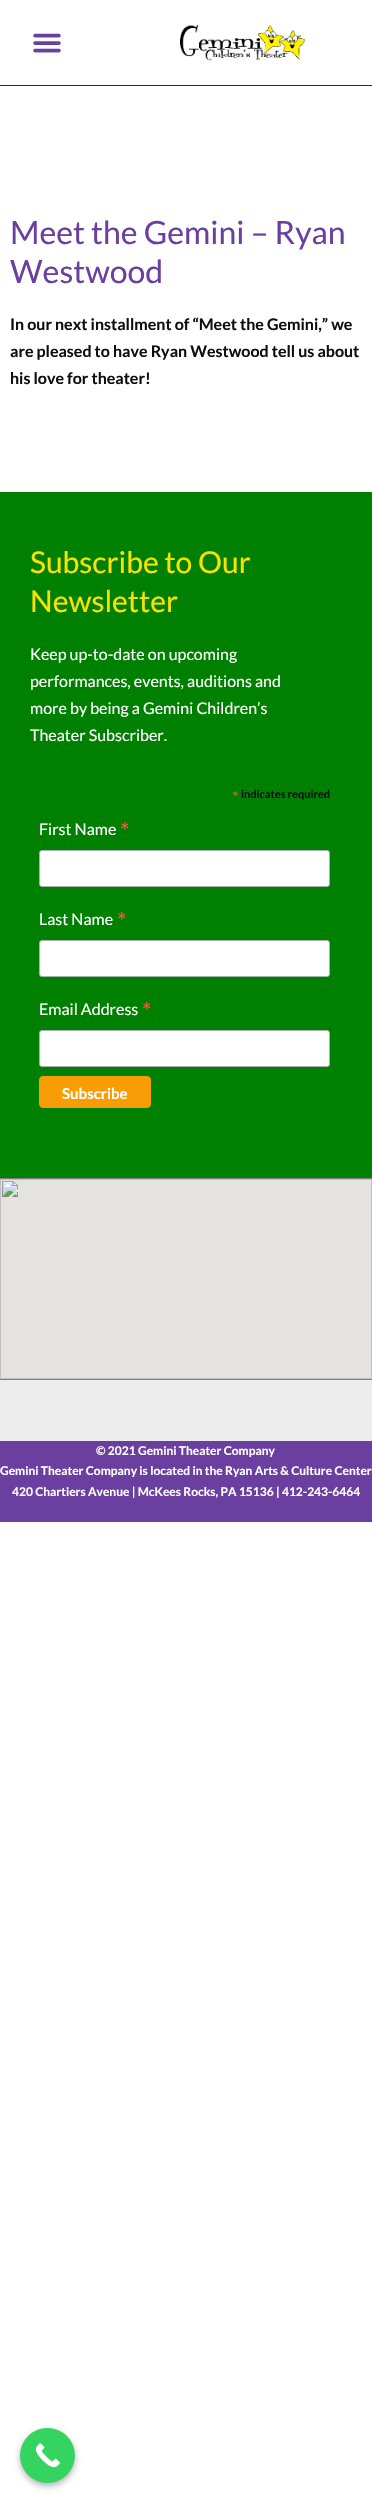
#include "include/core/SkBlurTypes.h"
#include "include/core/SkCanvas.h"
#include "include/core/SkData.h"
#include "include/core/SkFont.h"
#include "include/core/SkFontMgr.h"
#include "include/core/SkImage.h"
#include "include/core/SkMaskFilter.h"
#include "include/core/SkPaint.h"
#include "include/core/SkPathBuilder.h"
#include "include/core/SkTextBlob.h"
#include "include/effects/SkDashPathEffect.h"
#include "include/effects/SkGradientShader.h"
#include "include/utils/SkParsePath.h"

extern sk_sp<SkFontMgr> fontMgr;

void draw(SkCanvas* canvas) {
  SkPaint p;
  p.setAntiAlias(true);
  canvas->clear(SK_ColorWHITE);
  p.setColor(SkColorSetRGB(76, 0, 153));
  canvas->drawRect(SkRect::MakeLTRB(0, 85, 372, 86), p);
  canvas->drawImageRect(SkImages::DeferredFromEncodedData(SkData::MakeFromFileName("images/1.png")), SkRect::MakeLTRB(33, 33, 61, 53), SkSamplingOptions());
  canvas->drawImageRect(SkImages::DeferredFromEncodedData(SkData::MakeFromFileName("images/2.png")), SkRect::MakeLTRB(180, 24, 305, 61), SkSamplingOptions());
  p.setColor(SkColorSetRGB(0, 128, 0));
  canvas->drawRect(SkRect::MakeLTRB(0, 492, 372, 1178), p);
  p.setColor(SK_ColorWHITE);
  canvas->drawRoundRect(SkRect::MakeLTRB(39.5f, 850.5f, 329.5f, 886.5f), 2.5f, 2.5f, p);
  p.setStyle(SkPaint::kStroke_Style);
  p.setStrokeWidth(1);
  p.setColor(SkColorSetRGB(171, 176, 178));
  canvas->drawRoundRect(SkRect::MakeLTRB(39.5f, 850.5f, 329.5f, 886.5f), 2.5f, 2.5f, p);
  p.setStyle(SkPaint::kFill_Style);
  p.setColor(SK_ColorWHITE);
  canvas->drawRoundRect(SkRect::MakeLTRB(39.5f, 940.5f, 329.5f, 976.5f), 2.5f, 2.5f, p);
  p.setStyle(SkPaint::kStroke_Style);
  p.setColor(SkColorSetRGB(171, 176, 178));
  canvas->drawRoundRect(SkRect::MakeLTRB(39.5f, 940.5f, 329.5f, 976.5f), 2.5f, 2.5f, p);
  p.setStyle(SkPaint::kFill_Style);
  p.setColor(SK_ColorWHITE);
  canvas->drawRoundRect(SkRect::MakeLTRB(39.5f, 1030.5f, 329.5f, 1066.5f), 2.5f, 2.5f, p);
  p.setStyle(SkPaint::kStroke_Style);
  p.setColor(SkColorSetRGB(171, 176, 178));
  canvas->drawRoundRect(SkRect::MakeLTRB(39.5f, 1030.5f, 329.5f, 1066.5f), 2.5f, 2.5f, p);
  p.setStyle(SkPaint::kFill_Style);
  p.setColor(SkColorSetRGB(249, 157, 7));
  canvas->drawRoundRect(SkRect::MakeLTRB(39.5f, 1076.5f, 150.5f, 1107.5f), 3.5f, 3.5f, p);
  p.setStyle(SkPaint::kStroke_Style);
  canvas->drawRoundRect(SkRect::MakeLTRB(39.5f, 1076.5f, 150.5f, 1107.5f), 3.5f, 3.5f, p);
  p.setStyle(SkPaint::kFill_Style);
  p.setColor(SkColorSetRGB(128, 128, 128));
  canvas->drawRect(SkRect::MakeLTRB(0, 1178, 372, 1179), p);
  canvas->drawRect(SkRect::MakeLTRB(0, 1379, 372, 1380), p);
  canvas->drawImageRect(SkImages::DeferredFromEncodedData(SkData::MakeFromFileName("images/3.png")), SkRect::MakeLTRB(0, 1179, 372, 1379), SkSamplingOptions());
  p.setColor(SkColorSetRGB(237, 237, 237));
  canvas->drawRect(SkRect::MakeLTRB(0, 1380, 372, 1441), p);
  p.setColor(SkColorSetRGB(107, 63, 160));
  canvas->drawRect(SkRect::MakeLTRB(0, 1441, 372, 1522), p);
  p.setColor(SkColorSetARGB(77, 0, 0, 0));
  p.setMaskFilter(SkMaskFilter::MakeBlur(kNormal_SkBlurStyle, 3));
  canvas->drawRoundRect(SkRect::MakeLTRB(20, 2431, 75, 2486), 27.5f, 27.5f, p);
  p.setMaskFilter(nullptr);
  p.setColor(SkColorSetRGB(53, 212, 97));
  canvas->drawCircle(47.5f, 2455.5f, 27.5f, p);
  canvas->drawImageRect(SkImages::DeferredFromEncodedData(SkData::MakeFromFileName("images/4.png")), SkRect::MakeLTRB(35, 2443, 60, 2468), SkSamplingOptions());
  SkFont font1(fontMgr->matchFamilyStyle("Lato", SkFontStyle::Normal()), 32);
  font1.setSubpixel(true);
  p.setColor(SkColorSetRGB(107, 63, 160));
  canvas->drawString("Meet the Gemini – Ryan", 10, 244, font1, p);
  canvas->drawString("Westwood", 10, 283, font1, p);
  SkFont font2(fontMgr->matchFamilyStyle("Lato", SkFontStyle::Bold()), 16);
  font2.setSubpixel(true);
  p.setColor(SkColorSetRGB(14, 14, 14));
  canvas->drawString("In our next installment of “Meet the Gemini,” we", 10, 330, font2, p);
  canvas->drawString("are pleased to have Ryan Westwood tell us about", 10, 357, font2, p);
  canvas->drawString("his love for theater!", 10, 384, font2, p);
  SkFont font3(fontMgr->matchFamilyStyle("Lato", SkFontStyle::Normal()), 30);
  font3.setSubpixel(true);
  p.setColor(SkColorSetRGB(249, 225, 4));
  canvas->drawString("Subscribe to Our", 30, 573, font3, p);
  canvas->drawString("Newsletter", 30, 612, font3, p);
  SkFont font4(fontMgr->matchFamilyStyle("Lato", SkFontStyle::Normal()), 16);
  font4.setSubpixel(true);
  p.setColor(SK_ColorWHITE);
  canvas->drawString("Keep up-to-date on upcoming", 30, 660, font4, p);
  canvas->drawString("performances, events, auditions and", 30, 687, font4, p);
  canvas->drawString("more by being a Gemini Children’s", 30, 714, font4, p);
  canvas->drawString("Theater Subscriber.", 30, 741, font4, p);
  p.setColor(SkColorSetRGB(232, 92, 65));
  canvas->drawString("*", 232, 803, font4, p);
  SkFont font5(fontMgr->matchFamilyStyle("Lato", SkFontStyle::Bold()), 11);
  font5.setSubpixel(true);
  p.setColor(SkColorSetRGB(14, 14, 14));
  canvas->drawString("indicates required", 241, 798, font5, p);
  p.setColor(SK_ColorWHITE);
  canvas->drawString("First Name", 39, 835, font4, p);
  SkFont font6(fontMgr->matchFamilyStyle("Lato", SkFontStyle::Normal()), 24);
  font6.setSubpixel(true);
  p.setColor(SkColorSetRGB(232, 92, 65));
  canvas->drawString("*", 120, 840, font6, p);
  p.setColor(SK_ColorWHITE);
  canvas->drawString("Last Name", 39, 925, font4, p);
  p.setColor(SkColorSetRGB(232, 92, 65));
  canvas->drawString("*", 117, 930, font6, p);
  p.setColor(SK_ColorWHITE);
  canvas->drawString("Email Address", 39, 1015, font4, p);
  p.setColor(SkColorSetRGB(232, 92, 65));
  canvas->drawString("*", 142, 1020, font6, p);
  SkFont font7(fontMgr->matchFamilyStyle("Lato", SkFontStyle::Bold()), 15);
  font7.setSubpixel(true);
  p.setColor(SK_ColorWHITE);
  canvas->drawString("Subscribe", 62, 1099, font7, p);
  SkFont font8(fontMgr->matchFamilyStyle("Lato", SkFontStyle::Bold()), 12);
  font8.setSubpixel(true);
  canvas->drawString("© 2021 Gemini Theater Company", 96, 1455, font8, p);
  canvas->drawString("Gemini Theater Company is located in the Ryan Arts & Culture Center", 0, 1475, font8, p);
  canvas->drawString("420 Chartiers Avenue | McKees Rocks, PA 15136 | 412-243-6464", 12, 1496, font8, p);
}
